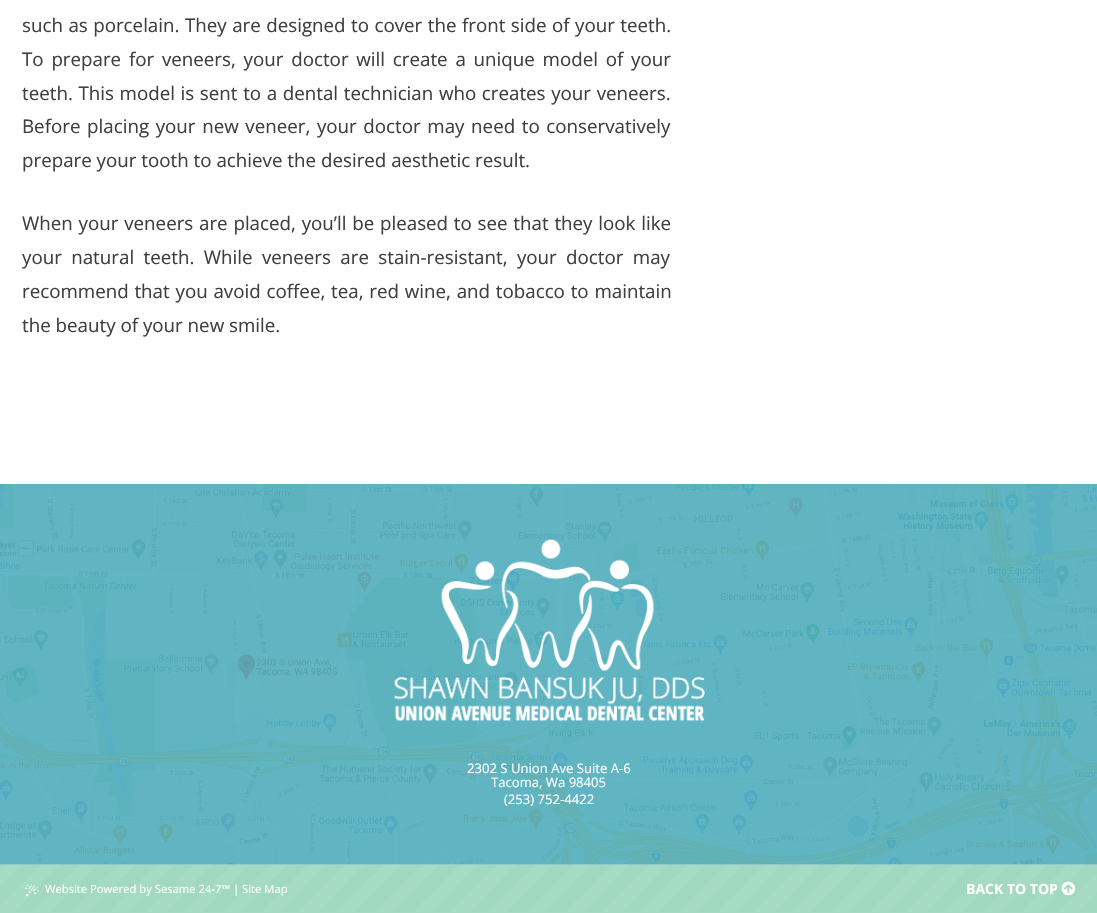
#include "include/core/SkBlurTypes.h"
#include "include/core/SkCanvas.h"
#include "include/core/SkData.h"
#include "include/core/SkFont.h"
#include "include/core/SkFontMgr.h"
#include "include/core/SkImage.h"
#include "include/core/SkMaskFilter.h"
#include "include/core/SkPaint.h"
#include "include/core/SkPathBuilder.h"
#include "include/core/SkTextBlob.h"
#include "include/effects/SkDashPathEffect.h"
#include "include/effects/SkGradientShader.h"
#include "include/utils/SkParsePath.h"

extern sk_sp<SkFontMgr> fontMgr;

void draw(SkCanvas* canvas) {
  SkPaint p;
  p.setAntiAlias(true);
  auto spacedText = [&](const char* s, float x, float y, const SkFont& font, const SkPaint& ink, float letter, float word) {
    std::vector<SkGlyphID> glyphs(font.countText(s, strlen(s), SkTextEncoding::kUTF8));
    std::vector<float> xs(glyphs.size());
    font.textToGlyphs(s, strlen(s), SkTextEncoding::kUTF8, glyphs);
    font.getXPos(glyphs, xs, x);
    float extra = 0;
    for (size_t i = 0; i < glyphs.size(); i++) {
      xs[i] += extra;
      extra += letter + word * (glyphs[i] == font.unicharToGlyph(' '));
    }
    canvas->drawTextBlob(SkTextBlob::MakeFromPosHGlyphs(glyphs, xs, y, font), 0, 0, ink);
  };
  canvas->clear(SK_ColorWHITE);
  canvas->drawImageRect(SkImages::DeferredFromEncodedData(SkData::MakeFromFileName("images/1.png")), SkRect::MakeLTRB(0, 484, 1097, 865), SkSamplingOptions());
  canvas->drawImageRect(SkImages::DeferredFromEncodedData(SkData::MakeFromFileName("images/2.png")), SkRect::MakeLTRB(394, 539, 705, 722), SkSamplingOptions());
  p.setColor(SkColorSetRGB(165, 218, 195));
  canvas->drawRect(SkRect::MakeLTRB(0, 912, 1097, 913), p);
  canvas->drawImageRect(SkImages::DeferredFromEncodedData(SkData::MakeFromFileName("images/3.png")), SkRect::MakeLTRB(0, 864, 1097, 912), SkSamplingOptions());
  canvas->drawImageRect(SkImages::DeferredFromEncodedData(SkData::MakeFromFileName("images/4.png")), SkRect::MakeLTRB(25, 884, 39, 897), SkSamplingOptions());
  canvas->drawImageRect(SkImages::DeferredFromEncodedData(SkData::MakeFromFileName("images/5.png")), SkRect::MakeLTRB(1061, 881, 1076, 896), SkSamplingOptions());
  SkFont font1(fontMgr->matchFamilyStyle("Open Sans", SkFontStyle::Normal()), 18.75f);
  font1.setSubpixel(true);
  p.setColor(SkColorSetRGB(63, 63, 63));
  spacedText("such as porcelain. They are designed to cover the front side of your teeth.", 22, 32, font1, p, 0, 0.6f);
  spacedText("To prepare for veneers, your doctor will create a unique model of your", 22, 66, font1, p, 0, 2.9f);
  spacedText("teeth. This model is sent to a dental technician who creates your veneers.", 22, 100, font1, p, 0, 0.75f);
  spacedText("Before placing your new veneer, your doctor may need to conservatively", 22, 133, font1, p, 0, 1.75f);
  canvas->drawString("prepare your tooth to achieve the desired aesthetic result.", 22, 167, font1, p);
  spacedText("When your veneers are placed, you’ll be pleased to see that they look like", 22, 230, font1, p, 0, 0.9f);
  spacedText("your natural teeth. While veneers are stain-resistant, your doctor may", 22, 264, font1, p, 0, 4.5f);
  spacedText("recommend that you avoid coffee, tea, red wine, and tobacco to maintain", 22, 298, font1, p, 0, 0.9f);
  canvas->drawString("the beauty of your new smile.", 22, 332, font1, p);
  SkFont font2(fontMgr->matchFamilyStyle("Open Sans", SkFontStyle::Normal()), 13.1f);
  font2.setSubpixel(true);
  p.setColor(SK_ColorWHITE);
  canvas->drawString("2302 S Union Ave Suite A-6", 467, 773, font2, p);
  canvas->drawString("Tacoma, Wa 98405", 491, 787, font2, p);
  canvas->drawString("(253) 752-4422", 504, 804, font2, p);
  SkFont font3(fontMgr->matchFamilyStyle("Open Sans", SkFontStyle::Normal()), 11.25f);
  font3.setSubpixel(true);
  canvas->drawString("Website Powered by Sesame 24-7™", 45, 893, font3, p);
  canvas->drawString("| Site Map", 233, 893, font3, p);
  SkFont font4(fontMgr->matchFamilyStyle("Open Sans", SkFontStyle::Bold()), 14);
  font4.setSubpixel(true);
  canvas->drawString("BACK TO TOP", 966, 894, font4, p);
}
